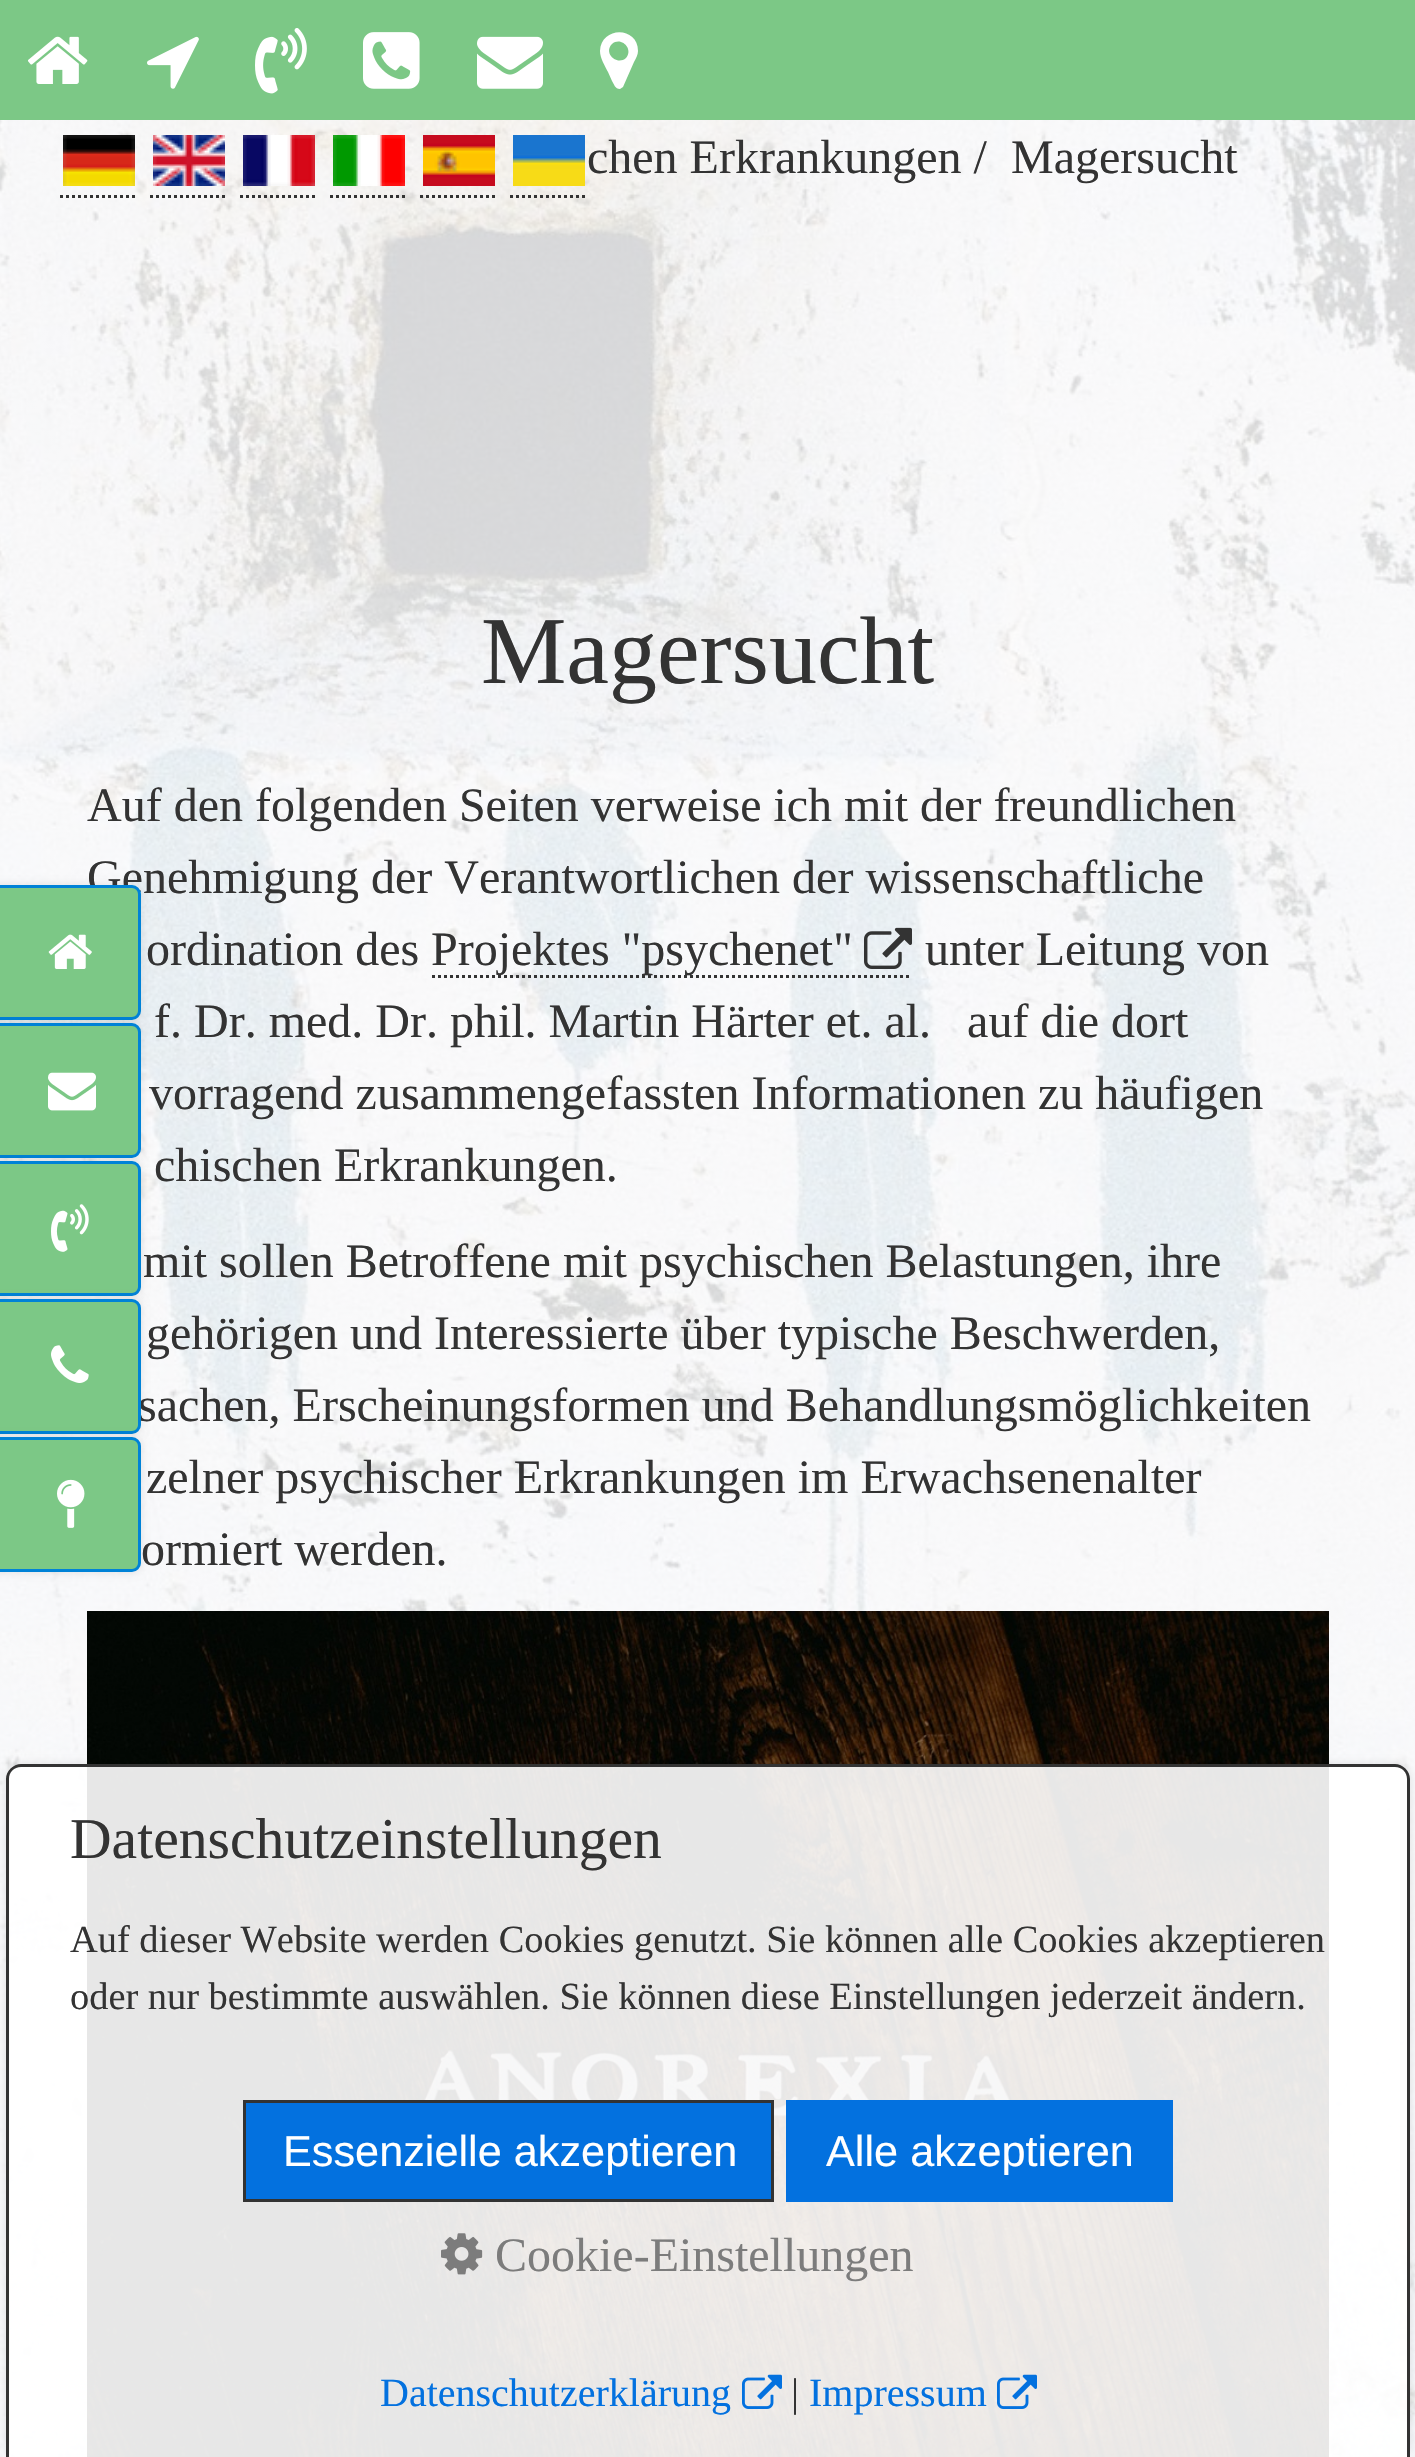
#include "include/core/SkBlurTypes.h"
#include "include/core/SkCanvas.h"
#include "include/core/SkData.h"
#include "include/core/SkFont.h"
#include "include/core/SkFontMgr.h"
#include "include/core/SkImage.h"
#include "include/core/SkMaskFilter.h"
#include "include/core/SkPaint.h"
#include "include/core/SkPathBuilder.h"
#include "include/core/SkTextBlob.h"
#include "include/effects/SkDashPathEffect.h"
#include "include/effects/SkGradientShader.h"
#include "include/utils/SkParsePath.h"

extern sk_sp<SkFontMgr> fontMgr;

void draw(SkCanvas* canvas) {
  SkPaint p;
  p.setAntiAlias(true);
  canvas->clear(SK_ColorWHITE);
  p.setColor(SkColorSetRGB(124, 200, 134));
  canvas->drawRect(SkRect::MakeLTRB(0, 0, 1415, 120), p);
  canvas->drawImageRect(SkImages::DeferredFromEncodedData(SkData::MakeFromFileName("images/1.png")), SkRect::MakeLTRB(28, 36, 88, 84), SkSamplingOptions());
  canvas->drawImageRect(SkImages::DeferredFromEncodedData(SkData::MakeFromFileName("images/2.png")), SkRect::MakeLTRB(147, 36, 199, 89), SkSamplingOptions());
  canvas->drawImageRect(SkImages::DeferredFromEncodedData(SkData::MakeFromFileName("images/3.png")), SkRect::MakeLTRB(255, 28, 307, 94), SkSamplingOptions());
  canvas->drawImageRect(SkImages::DeferredFromEncodedData(SkData::MakeFromFileName("images/4.png")), SkRect::MakeLTRB(363, 32, 420, 89), SkSamplingOptions());
  canvas->drawImageRect(SkImages::DeferredFromEncodedData(SkData::MakeFromFileName("images/5.png")), SkRect::MakeLTRB(477, 36, 543, 89), SkSamplingOptions());
  p.setColor(SK_ColorWHITE);
  canvas->drawPath(SkPathBuilder().moveTo(626, 58).cubicTo(634, 49, 621, 36, 612, 44).cubicTo(603, 53, 617, 66, 626, 58).close().moveTo(638, 51).cubicTo(638, 55, 636, 58, 634, 62).lineTo(623, 87).lineTo(620, 89).cubicTo(615, 89, 614, 84, 612, 81).lineTo(608, 72).cubicTo(605, 66, 600, 58, 600, 51).cubicTo(601, 26, 638, 26, 638, 51).close().detach(), p);
  canvas->drawImageRect(SkImages::DeferredFromEncodedData(SkData::MakeFromFileName("images/12.png")), SkRect::MakeLTRB(0, 120, 1415, 2457), SkSamplingOptions());
  canvas->drawImageRect(SkImages::DeferredFromEncodedData(SkData::MakeFromFileName("images/6.png")), SkRect::MakeLTRB(63, 135, 135, 186), SkSamplingOptions());
  canvas->drawImageRect(SkImages::DeferredFromEncodedData(SkData::MakeFromFileName("images/7.png")), SkRect::MakeLTRB(153, 135, 225, 186), SkSamplingOptions());
  canvas->drawImageRect(SkImages::DeferredFromEncodedData(SkData::MakeFromFileName("images/8.png")), SkRect::MakeLTRB(243, 135, 315, 186), SkSamplingOptions());
  canvas->drawImageRect(SkImages::DeferredFromEncodedData(SkData::MakeFromFileName("images/9.png")), SkRect::MakeLTRB(333, 135, 405, 186), SkSamplingOptions());
  canvas->drawImageRect(SkImages::DeferredFromEncodedData(SkData::MakeFromFileName("images/10.png")), SkRect::MakeLTRB(423, 135, 495, 186), SkSamplingOptions());
  canvas->drawImageRect(SkImages::DeferredFromEncodedData(SkData::MakeFromFileName("images/11.png")), SkRect::MakeLTRB(513, 135, 585, 186), SkSamplingOptions());
  p.setStyle(SkPaint::kStroke_Style);
  p.setStrokeWidth(3);
  p.setColor(SkColorSetRGB(51, 51, 51));
  p.setPathEffect(SkDashPathEffect::Make({{3, 3}}, 0));
  canvas->drawPath(SkPathBuilder().moveTo(60, 196.5f).lineTo(138, 196.5f).detach(), p);
  p.setPathEffect(nullptr);
  p.setPathEffect(SkDashPathEffect::Make({{3, 3}}, 0));
  canvas->drawPath(SkPathBuilder().moveTo(150, 196.5f).lineTo(228, 196.5f).detach(), p);
  p.setPathEffect(nullptr);
  p.setPathEffect(SkDashPathEffect::Make({{3, 3}}, 0));
  canvas->drawPath(SkPathBuilder().moveTo(240, 196.5f).lineTo(318, 196.5f).detach(), p);
  p.setPathEffect(nullptr);
  p.setPathEffect(SkDashPathEffect::Make({{3, 3}}, 0));
  canvas->drawPath(SkPathBuilder().moveTo(330, 196.5f).lineTo(408, 196.5f).detach(), p);
  p.setPathEffect(nullptr);
  p.setPathEffect(SkDashPathEffect::Make({{3, 3}}, 0));
  canvas->drawPath(SkPathBuilder().moveTo(420, 196.5f).lineTo(498, 196.5f).detach(), p);
  p.setPathEffect(nullptr);
  p.setPathEffect(SkDashPathEffect::Make({{3, 3}}, 0));
  canvas->drawPath(SkPathBuilder().moveTo(510, 196.5f).lineTo(588, 196.5f).detach(), p);
  p.setPathEffect(nullptr);
  p.setStyle(SkPaint::kFill_Style);
  p.setColor(SkColorSetARGB(26, 0, 0, 0));
  p.setMaskFilter(SkMaskFilter::MakeBlur(kNormal_SkBlurStyle, 4.5f));
  canvas->drawRoundRect(SkRect::MakeLTRB(-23, 885, 141, 1020), 9, 9, p);
  p.setMaskFilter(nullptr);
  p.setStyle(SkPaint::kStroke_Style);
  p.setColor(SkColorSetRGB(51, 51, 51));
  p.setPathEffect(SkDashPathEffect::Make({{3, 3}}, 0));
  canvas->drawPath(SkPathBuilder().moveTo(432, 976.5f).lineTo(852, 976.5f).detach(), p);
  p.setPathEffect(nullptr);
  p.setPathEffect(SkDashPathEffect::Make({{3, 3}}, 0));
  canvas->drawPath(SkPathBuilder().moveTo(852, 976.5f).lineTo(912, 976.5f).detach(), p);
  p.setPathEffect(nullptr);
  canvas->drawImageRect(SkImages::DeferredFromEncodedData(SkData::MakeFromFileName("images/18.png")), SkRect::MakeLTRB(864, 927, 912, 969), SkSamplingOptions());
  canvas->drawImageRect(SkImages::DeferredFromEncodedData(SkData::MakeFromFileName("images/19.png")), SkRect::MakeLTRB(87, 1611, 1329, 2457), SkSamplingOptions());
  canvas->save();
  canvas->clipPath(SkPathBuilder(SkPathFillType::kEvenOdd).moveTo(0, 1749).lineTo(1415, 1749).lineTo(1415, 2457).lineTo(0, 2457).close().moveTo(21, 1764).lineTo(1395, 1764).cubicTo(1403.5f, 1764, 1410, 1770.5f, 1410, 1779).lineTo(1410, 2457).lineTo(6, 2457).lineTo(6, 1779).cubicTo(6, 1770.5f, 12.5f, 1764, 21, 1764).close().detach(), true);
  p.setStyle(SkPaint::kFill_Style);
  p.setColor(SkColorSetARGB(26, 0, 0, 0));
  p.setMaskFilter(SkMaskFilter::MakeBlur(kNormal_SkBlurStyle, 4.5f));
  canvas->drawRoundRect(SkRect::MakeLTRB(6, 1764, 1410, 2457), 15, 15, p);
  p.setMaskFilter(nullptr);
  canvas->restore();
  p.setColor(SkColorSetARGB(230, 255, 255, 255));
  canvas->drawPath(SkPathBuilder().moveTo(21, 1764).lineTo(1395, 1764).cubicTo(1403.5f, 1764, 1410, 1770.5f, 1410, 1779).lineTo(1410, 2457).lineTo(6, 2457).lineTo(6, 1779).cubicTo(6, 1770.5f, 12.5f, 1764, 21, 1764).close().detach(), p);
  p.setColor(SkColorSetRGB(51, 51, 51));
  canvas->drawPath(SkPathBuilder(SkPathFillType::kEvenOdd).moveTo(21, 1764).lineTo(1395, 1764).cubicTo(1403, 1764, 1410, 1771, 1410, 1779).lineTo(1410, 2457).lineTo(6, 2457).lineTo(6, 1779).cubicTo(6, 1771, 13, 1764, 21, 1764).close().moveTo(21, 1767).lineTo(1395, 1767).cubicTo(1402, 1767, 1407, 1772, 1407, 1779).lineTo(1407, 2457).lineTo(9, 2457).lineTo(9, 1779).cubicTo(9, 1772, 14, 1767, 21, 1767).close().detach(), p);
  p.setColor(SkColorSetRGB(3, 113, 223));
  canvas->drawRect(SkRect::MakeLTRB(244.5f, 2101.5f, 772.5f, 2200.5f), p);
  p.setStyle(SkPaint::kStroke_Style);
  p.setColor(SkColorSetRGB(51, 51, 51));
  canvas->drawRect(SkRect::MakeLTRB(244.5f, 2101.5f, 772.5f, 2200.5f), p);
  p.setStyle(SkPaint::kFill_Style);
  p.setColor(SkColorSetRGB(3, 113, 223));
  canvas->drawRect(SkRect::MakeLTRB(786, 2100, 1173, 2202), p);
  canvas->drawImageRect(SkImages::DeferredFromEncodedData(SkData::MakeFromFileName("images/20.png")), SkRect::MakeLTRB(441, 2233, 483, 2275), SkSamplingOptions());
  canvas->drawImageRect(SkImages::DeferredFromEncodedData(SkData::MakeFromFileName("images/21.png")), SkRect::MakeLTRB(742, 2374, 782, 2409), SkSamplingOptions());
  canvas->drawImageRect(SkImages::DeferredFromEncodedData(SkData::MakeFromFileName("images/22.png")), SkRect::MakeLTRB(997, 2374, 1037, 2409), SkSamplingOptions());
  SkFont font1(fontMgr->matchFamilyStyle("Liberation Serif", SkFontStyle::Normal()), 48);
  font1.setSubpixel(true);
  p.setColor(SkColorSetRGB(51, 51, 51));
  canvas->drawString("chen Erkrankungen /", 587, 173, font1, p);
  canvas->drawString("Magersucht", 1011, 173, font1, p);
  SkFont font2(fontMgr->matchFamilyStyle("Liberation Serif", SkFontStyle::Normal()), 96);
  font2.setSubpixel(true);
  canvas->drawString("Magersucht", 481, 683, font2, p);
  canvas->drawString("Auf den folgenden Seiten verweise ich mit der freundlichen", 87, 821, font1, p);
  canvas->drawString("Genehmigung der Verantwortlichen der wissenschaftliche", 87, 893, font1, p);
  p.setColor(SkColorSetRGB(124, 200, 134));
  canvas->drawPath(SkPathBuilder().moveTo(-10.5f, 886.5f).lineTo(132, 886.5f).cubicTo(136, 886.5f, 139.5f, 890, 139.5f, 894).lineTo(139.5f, 1011).cubicTo(139.5f, 1015, 136, 1018.5f, 132, 1018.5f).lineTo(-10.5f, 1018.5f).close().detach(), p);
  p.setStyle(SkPaint::kStroke_Style);
  p.setColor(SkColorSetRGB(0, 130, 215));
  canvas->drawPath(SkPathBuilder().moveTo(-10.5f, 886.5f).lineTo(132, 886.5f).cubicTo(136, 886.5f, 139.5f, 890, 139.5f, 894).lineTo(139.5f, 1011).cubicTo(139.5f, 1015, 136, 1018.5f, 132, 1018.5f).lineTo(-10.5f, 1018.5f).close().detach(), p);
  p.setStyle(SkPaint::kFill_Style);
  p.setColor(SkColorSetARGB(26, 0, 0, 0));
  p.setMaskFilter(SkMaskFilter::MakeBlur(kNormal_SkBlurStyle, 4.5f));
  canvas->drawRoundRect(SkRect::MakeLTRB(-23, 1023, 141, 1158), 9, 9, p);
  p.setMaskFilter(nullptr);
  p.setColor(SkColorSetRGB(124, 200, 134));
  canvas->drawPath(SkPathBuilder().moveTo(-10.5f, 1024.5f).lineTo(132, 1024.5f).cubicTo(136, 1024.5f, 139.5f, 1028, 139.5f, 1032).lineTo(139.5f, 1149).cubicTo(139.5f, 1153, 136, 1156.5f, 132, 1156.5f).lineTo(-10.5f, 1156.5f).close().detach(), p);
  p.setStyle(SkPaint::kStroke_Style);
  p.setColor(SkColorSetRGB(0, 130, 215));
  canvas->drawPath(SkPathBuilder().moveTo(-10.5f, 1024.5f).lineTo(132, 1024.5f).cubicTo(136, 1024.5f, 139.5f, 1028, 139.5f, 1032).lineTo(139.5f, 1149).cubicTo(139.5f, 1153, 136, 1156.5f, 132, 1156.5f).lineTo(-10.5f, 1156.5f).close().detach(), p);
  p.setStyle(SkPaint::kFill_Style);
  p.setColor(SkColorSetARGB(26, 0, 0, 0));
  p.setMaskFilter(SkMaskFilter::MakeBlur(kNormal_SkBlurStyle, 4.5f));
  canvas->drawRoundRect(SkRect::MakeLTRB(-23, 1161, 141, 1296), 9, 9, p);
  p.setMaskFilter(nullptr);
  p.setColor(SkColorSetRGB(124, 200, 134));
  canvas->drawPath(SkPathBuilder().moveTo(-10.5f, 1162.5f).lineTo(132, 1162.5f).cubicTo(136, 1162.5f, 139.5f, 1166, 139.5f, 1170).lineTo(139.5f, 1287).cubicTo(139.5f, 1291, 136, 1294.5f, 132, 1294.5f).lineTo(-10.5f, 1294.5f).close().detach(), p);
  p.setStyle(SkPaint::kStroke_Style);
  p.setColor(SkColorSetRGB(0, 130, 215));
  canvas->drawPath(SkPathBuilder().moveTo(-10.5f, 1162.5f).lineTo(132, 1162.5f).cubicTo(136, 1162.5f, 139.5f, 1166, 139.5f, 1170).lineTo(139.5f, 1287).cubicTo(139.5f, 1291, 136, 1294.5f, 132, 1294.5f).lineTo(-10.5f, 1294.5f).close().detach(), p);
  p.setStyle(SkPaint::kFill_Style);
  p.setColor(SkColorSetARGB(26, 0, 0, 0));
  p.setMaskFilter(SkMaskFilter::MakeBlur(kNormal_SkBlurStyle, 4.5f));
  canvas->drawRoundRect(SkRect::MakeLTRB(-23, 1299, 141, 1434), 9, 9, p);
  p.setMaskFilter(nullptr);
  canvas->drawImageRect(SkImages::DeferredFromEncodedData(SkData::MakeFromFileName("images/15.png")), SkRect::MakeLTRB(51, 1204, 89, 1252), SkSamplingOptions());
  canvas->drawImageRect(SkImages::DeferredFromEncodedData(SkData::MakeFromFileName("images/14.png")), SkRect::MakeLTRB(48, 1072, 96, 1111), SkSamplingOptions());
  canvas->drawImageRect(SkImages::DeferredFromEncodedData(SkData::MakeFromFileName("images/13.png")), SkRect::MakeLTRB(48, 934, 92, 969), SkSamplingOptions());
  p.setColor(SkColorSetRGB(51, 51, 51));
  canvas->drawString("ordination des", 146, 965, font1, p);
  canvas->drawString("Projektes \"psychenet\"", 431, 965, font1, p);
  canvas->drawString("unter Leitung von", 925, 965, font1, p);
  canvas->drawString("f. Dr. med. Dr. phil. Martin Härter et. al.   auf die dort", 154, 1037, font1, p);
  canvas->drawString("vorragend zusammengefassten Informationen zu häufigen", 149, 1109, font1, p);
  canvas->drawString("chischen Erkrankungen.", 154, 1181, font1, p);
  canvas->drawString("mit sollen Betroffene mit psychischen Belastungen, ihre", 143, 1277, font1, p);
  canvas->drawString("gehörigen und Interessierte über typische Beschwerden,", 146, 1349, font1, p);
  canvas->drawString("sachen, Erscheinungsformen und Behandlungsmöglichkeiten", 138, 1421, font1, p);
  p.setColor(SkColorSetRGB(124, 200, 134));
  canvas->drawPath(SkPathBuilder().moveTo(-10.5f, 1300.5f).lineTo(132, 1300.5f).cubicTo(136, 1300.5f, 139.5f, 1304, 139.5f, 1308).lineTo(139.5f, 1425).cubicTo(139.5f, 1429, 136, 1432.5f, 132, 1432.5f).lineTo(-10.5f, 1432.5f).close().detach(), p);
  p.setStyle(SkPaint::kStroke_Style);
  p.setColor(SkColorSetRGB(0, 130, 215));
  canvas->drawPath(SkPathBuilder().moveTo(-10.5f, 1300.5f).lineTo(132, 1300.5f).cubicTo(136, 1300.5f, 139.5f, 1304, 139.5f, 1308).lineTo(139.5f, 1425).cubicTo(139.5f, 1429, 136, 1432.5f, 132, 1432.5f).lineTo(-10.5f, 1432.5f).close().detach(), p);
  p.setStyle(SkPaint::kFill_Style);
  p.setColor(SkColorSetARGB(26, 0, 0, 0));
  p.setMaskFilter(SkMaskFilter::MakeBlur(kNormal_SkBlurStyle, 4.5f));
  canvas->drawRoundRect(SkRect::MakeLTRB(-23, 1437, 141, 1572), 9, 9, p);
  p.setMaskFilter(nullptr);
  p.setColor(SkColorSetRGB(124, 200, 134));
  canvas->drawPath(SkPathBuilder().moveTo(-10.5f, 1438.5f).lineTo(132, 1438.5f).cubicTo(136, 1438.5f, 139.5f, 1442, 139.5f, 1446).lineTo(139.5f, 1563).cubicTo(139.5f, 1567, 136, 1570.5f, 132, 1570.5f).lineTo(-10.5f, 1570.5f).close().detach(), p);
  p.setStyle(SkPaint::kStroke_Style);
  p.setColor(SkColorSetRGB(0, 130, 215));
  canvas->drawPath(SkPathBuilder().moveTo(-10.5f, 1438.5f).lineTo(132, 1438.5f).cubicTo(136, 1438.5f, 139.5f, 1442, 139.5f, 1446).lineTo(139.5f, 1563).cubicTo(139.5f, 1567, 136, 1570.5f, 132, 1570.5f).lineTo(-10.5f, 1570.5f).close().detach(), p);
  canvas->drawImageRect(SkImages::DeferredFromEncodedData(SkData::MakeFromFileName("images/17.png")), SkRect::MakeLTRB(57, 1479, 85, 1528), SkSamplingOptions());
  canvas->drawImageRect(SkImages::DeferredFromEncodedData(SkData::MakeFromFileName("images/16.png")), SkRect::MakeLTRB(51, 1345, 89, 1383), SkSamplingOptions());
  p.setStyle(SkPaint::kFill_Style);
  p.setColor(SkColorSetRGB(51, 51, 51));
  canvas->drawString("zelner psychischer Erkrankungen im Erwachsenenalter", 146, 1493, font1, p);
  canvas->drawString("ormiert werden.", 141, 1565, font1, p);
  SkFont font3(fontMgr->matchFamilyStyle("Liberation Serif", SkFontStyle::Normal()), 57.6f);
  font3.setSubpixel(true);
  canvas->drawString("Datenschutzeinstellungen", 70, 1858, font3, p);
  SkFont font4(fontMgr->matchFamilyStyle("Liberation Serif", SkFontStyle::Normal()), 38.4f);
  font4.setSubpixel(true);
  canvas->drawString("Auf dieser Website werden Cookies genutzt. Sie können alle Cookies akzeptieren", 70, 1952, font4, p);
  canvas->drawString("oder nur bestimmte auswählen. Sie können diese Einstellungen jederzeit ändern.", 70, 2009, font4, p);
  SkFont font5(fontMgr->matchFamilyStyle("Liberation Sans", SkFontStyle::Normal()), 43.25f);
  font5.setSubpixel(true);
  p.setColor(SK_ColorWHITE);
  canvas->drawString("Essenzielle akzeptieren", 283, 2166, font5, p);
  canvas->drawString("Alle akzeptieren", 826, 2166, font5, p);
  p.setColor(SkColorSetRGB(124, 124, 124));
  canvas->drawString("Cookie-Einstellungen", 495, 2271, font1, p);
  SkFont font6(fontMgr->matchFamilyStyle("Liberation Serif", SkFontStyle::Normal()), 40);
  font6.setSubpixel(true);
  p.setColor(SkColorSetRGB(3, 113, 223));
  canvas->drawString("Datenschutzerklärung", 380, 2406, font6, p);
  p.setColor(SkColorSetRGB(51, 51, 51));
  canvas->drawString("|", 791, 2406, font6, p);
  p.setColor(SkColorSetRGB(3, 113, 223));
  canvas->drawString("Impressum", 809, 2406, font6, p);
}
